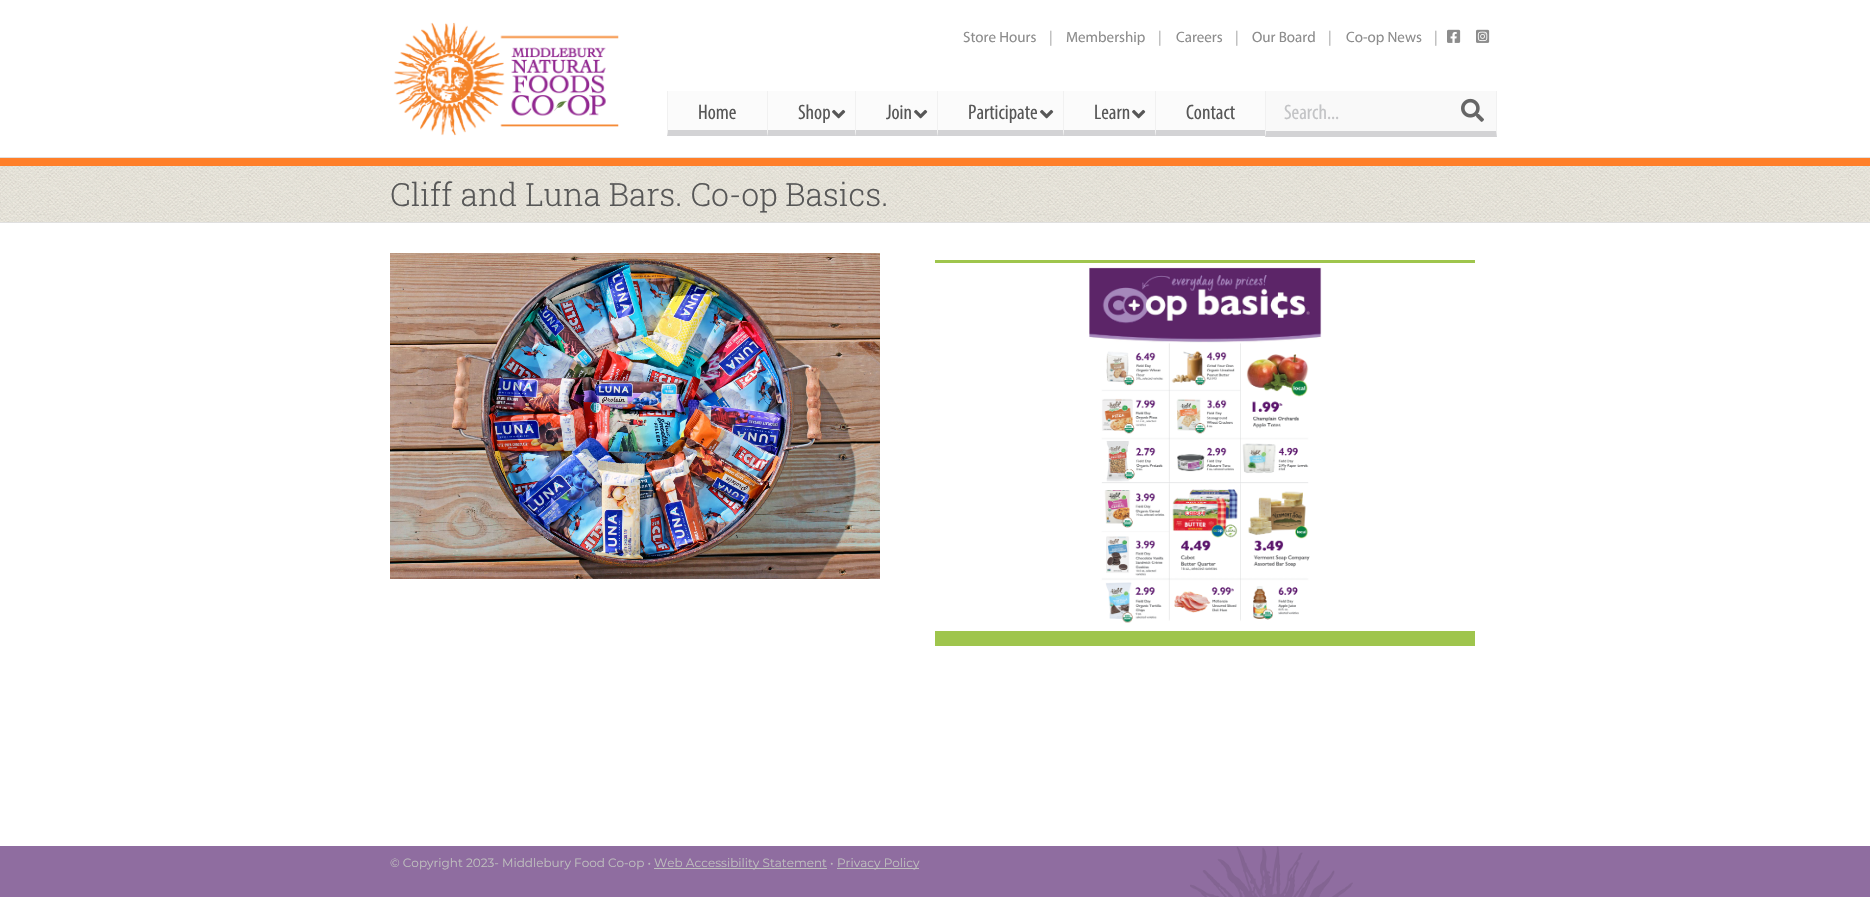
#include "include/core/SkBlurTypes.h"
#include "include/core/SkCanvas.h"
#include "include/core/SkData.h"
#include "include/core/SkFont.h"
#include "include/core/SkFontMgr.h"
#include "include/core/SkImage.h"
#include "include/core/SkMaskFilter.h"
#include "include/core/SkPaint.h"
#include "include/core/SkPathBuilder.h"
#include "include/core/SkTextBlob.h"
#include "include/effects/SkDashPathEffect.h"
#include "include/effects/SkGradientShader.h"
#include "include/utils/SkParsePath.h"

extern sk_sp<SkFontMgr> fontMgr;

void draw(SkCanvas* canvas) {
  SkPaint p;
  p.setAntiAlias(true);
  canvas->clear(SK_ColorWHITE);
  canvas->drawImageRect(SkImages::DeferredFromEncodedData(SkData::MakeFromFileName("images/1.png")), SkRect::MakeLTRB(1447, 29, 1461, 43), SkSamplingOptions());
  canvas->drawImageRect(SkImages::DeferredFromEncodedData(SkData::MakeFromFileName("images/2.png")), SkRect::MakeLTRB(1476, 29, 1490, 43), SkSamplingOptions());
  p.setColor(SkColorSetRGB(255, 127, 41));
  canvas->drawRect(SkRect::MakeLTRB(0, 158, 1870, 166), p);
  canvas->drawImageRect(SkImages::DeferredFromEncodedData(SkData::MakeFromFileName("images/3.png")), SkRect::MakeLTRB(393, 22, 619, 136), SkSamplingOptions());
  p.setColor(SkColorSetRGB(251, 251, 251));
  canvas->drawRect(SkRect::MakeLTRB(667, 91, 1265, 136), p);
  p.setColor(SkColorSetRGB(211, 211, 213));
  canvas->drawPath(SkPathBuilder().moveTo(767, 136).lineTo(667, 136).lineTo(668, 130).lineTo(767, 130).close().detach(), p);
  p.setColor(SkColorSetRGB(241, 241, 241));
  canvas->drawPath(SkPathBuilder().moveTo(667, 136).lineTo(667, 91).lineTo(668, 91).lineTo(668, 130).close().detach(), p);
  p.setColor(SkColorSetRGB(211, 211, 213));
  canvas->drawPath(SkPathBuilder().moveTo(855, 136).lineTo(767, 136).lineTo(768, 130).lineTo(855, 130).close().detach(), p);
  p.setColor(SkColorSetRGB(241, 241, 241));
  canvas->drawPath(SkPathBuilder().moveTo(767, 136).lineTo(767, 91).lineTo(768, 91).lineTo(768, 130).close().detach(), p);
  canvas->drawImageRect(SkImages::DeferredFromEncodedData(SkData::MakeFromFileName("images/4.png")), SkRect::MakeLTRB(832, 109, 846, 119), SkSamplingOptions());
  p.setColor(SkColorSetRGB(211, 211, 213));
  canvas->drawPath(SkPathBuilder().moveTo(937, 136).lineTo(855, 136).lineTo(856, 130).lineTo(937, 130).close().detach(), p);
  p.setColor(SkColorSetRGB(241, 241, 241));
  canvas->drawPath(SkPathBuilder().moveTo(855, 136).lineTo(855, 91).lineTo(856, 91).lineTo(856, 130).close().detach(), p);
  canvas->drawImageRect(SkImages::DeferredFromEncodedData(SkData::MakeFromFileName("images/4.png")), SkRect::MakeLTRB(914, 109, 928, 119), SkSamplingOptions());
  p.setColor(SkColorSetRGB(211, 211, 213));
  canvas->drawPath(SkPathBuilder().moveTo(1063, 136).lineTo(937, 136).lineTo(938, 130).lineTo(1063, 130).close().detach(), p);
  p.setColor(SkColorSetRGB(241, 241, 241));
  canvas->drawPath(SkPathBuilder().moveTo(937, 136).lineTo(937, 91).lineTo(938, 91).lineTo(938, 130).close().detach(), p);
  canvas->drawImageRect(SkImages::DeferredFromEncodedData(SkData::MakeFromFileName("images/4.png")), SkRect::MakeLTRB(1040, 109, 1054, 119), SkSamplingOptions());
  p.setColor(SkColorSetRGB(211, 211, 213));
  canvas->drawPath(SkPathBuilder().moveTo(1155, 136).lineTo(1063, 136).lineTo(1064, 130).lineTo(1155, 130).close().detach(), p);
  p.setColor(SkColorSetRGB(241, 241, 241));
  canvas->drawPath(SkPathBuilder().moveTo(1063, 136).lineTo(1063, 91).lineTo(1064, 91).lineTo(1064, 130).close().detach(), p);
  canvas->drawImageRect(SkImages::DeferredFromEncodedData(SkData::MakeFromFileName("images/4.png")), SkRect::MakeLTRB(1132, 109, 1146, 119), SkSamplingOptions());
  p.setColor(SkColorSetRGB(211, 211, 213));
  canvas->drawPath(SkPathBuilder().moveTo(1265, 136).lineTo(1155, 136).lineTo(1156, 130).lineTo(1265, 130).close().detach(), p);
  p.setColor(SkColorSetRGB(241, 241, 241));
  canvas->drawPath(SkPathBuilder().moveTo(1155, 136).lineTo(1155, 91).lineTo(1156, 91).lineTo(1156, 130).close().detach(), p);
  canvas->drawPath(SkPathBuilder().moveTo(1497, 91).lineTo(1497, 137).lineTo(1496, 131).lineTo(1496, 91).close().detach(), p);
  p.setColor(SkColorSetRGB(211, 211, 213));
  canvas->drawPath(SkPathBuilder().moveTo(1497, 137).lineTo(1265, 137).lineTo(1266, 131).lineTo(1496, 131).close().detach(), p);
  p.setColor(SkColorSetRGB(241, 241, 241));
  canvas->drawPath(SkPathBuilder().moveTo(1265, 137).lineTo(1265, 91).lineTo(1266, 91).lineTo(1266, 131).close().detach(), p);
  p.setColor(SkColorSetRGB(249, 249, 249));
  canvas->drawRect(SkRect::MakeLTRB(1266, 91, 1496, 131), p);
  canvas->drawImageRect(SkImages::DeferredFromEncodedData(SkData::MakeFromFileName("images/5.png")), SkRect::MakeLTRB(1461, 98, 1484, 122), SkSamplingOptions());
  p.setColor(SkColorSetRGB(224, 224, 224));
  canvas->drawRect(SkRect::MakeLTRB(0, 157, 1870, 158), p);
  canvas->drawImageRect(SkImages::DeferredFromEncodedData(SkData::MakeFromFileName("images/6.png")), SkRect::MakeLTRB(0, 166, 1870, 222), SkSamplingOptions());
  canvas->drawRect(SkRect::MakeLTRB(0, 222, 1870, 223), p);
  canvas->drawImageRect(SkImages::DeferredFromEncodedData(SkData::MakeFromFileName("images/7.png")), SkRect::MakeLTRB(390, 253, 880, 579), SkSamplingOptions());
  p.setColor(SkColorSetRGB(159, 197, 77));
  canvas->drawRect(SkRect::MakeLTRB(935, 260, 1475, 263), p);
  canvas->drawRect(SkRect::MakeLTRB(935, 631, 1475, 646), p);
  canvas->drawImageRect(SkImages::DeferredFromEncodedData(SkData::MakeFromFileName("images/8.png")), SkRect::MakeLTRB(1089, 267, 1322, 623), SkSamplingOptions());
  p.setColor(SkColorSetRGB(143, 109, 160));
  canvas->drawRect(SkRect::MakeLTRB(0, 846, 1870, 897), p);
  canvas->drawImageRect(SkImages::DeferredFromEncodedData(SkData::MakeFromFileName("images/9.png")), SkRect::MakeLTRB(1190, 846, 1353, 897), SkSamplingOptions());
  p.setColor(SkColorSetRGB(190, 190, 190));
  canvas->drawRect(SkRect::MakeLTRB(654, 868, 827, 869), p);
  canvas->drawRect(SkRect::MakeLTRB(837, 868, 919, 869), p);
  SkFont font1(fontMgr->matchFamilyStyle("Myriad", SkFontStyle::Normal()), 15);
  font1.setSubpixel(true);
  p.setColor(SkColorSetRGB(140, 140, 140));
  canvas->drawString("Store Hours", 963, 42, font1, p);
  p.setColor(SkColorSetRGB(176, 176, 176));
  canvas->drawString("|", 1049, 42, font1, p);
  p.setColor(SkColorSetRGB(140, 140, 140));
  canvas->drawString("Membership", 1066, 42, font1, p);
  p.setColor(SkColorSetRGB(176, 176, 176));
  canvas->drawString("|", 1158, 42, font1, p);
  p.setColor(SkColorSetRGB(140, 140, 140));
  canvas->drawString("Careers", 1176, 42, font1, p);
  p.setColor(SkColorSetRGB(176, 176, 176));
  canvas->drawString("|", 1235, 42, font1, p);
  p.setColor(SkColorSetRGB(140, 140, 140));
  canvas->drawString("Our Board", 1252, 42, font1, p);
  p.setColor(SkColorSetRGB(176, 176, 176));
  canvas->drawString("|", 1328, 42, font1, p);
  p.setColor(SkColorSetRGB(140, 140, 140));
  canvas->drawString("Co-op News", 1346, 42, font1, p);
  p.setColor(SkColorSetRGB(176, 176, 176));
  canvas->drawString("|", 1434, 42, font1, p);
  SkFont font2(fontMgr->matchFamilyStyle("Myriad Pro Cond", SkFontStyle::Normal()), 21);
  font2.setSubpixel(true);
  p.setColor(SkColorSetRGB(87, 87, 87));
  canvas->drawString("Home", 698, 119, font2, p);
  canvas->drawString("Shop", 798, 119, font2, p);
  canvas->drawString("Join", 886, 119, font2, p);
  canvas->drawString("Participate", 968, 119, font2, p);
  canvas->drawString("Learn", 1094, 119, font2, p);
  canvas->drawString("Contact", 1186, 119, font2, p);
  p.setColor(SkColorSetRGB(195, 196, 198));
  canvas->drawString("Search...", 1284, 119, font2, p);
  SkFont font3(fontMgr->matchFamilyStyle("Roboto Slab", SkFontStyle(300, SkFontStyle::kNormal_Width, SkFontStyle::kUpright_Slant)), 32);
  font3.setSubpixel(true);
  p.setColor(SkColorSetRGB(87, 87, 87));
  canvas->drawString("Cliff and Luna Bars. Co-op Basics.", 390, 206, font3, p);
  SkFont font4(fontMgr->matchFamilyStyle("Montserrat", SkFontStyle::Normal()), 12);
  font4.setSubpixel(true);
  p.setColor(SkColorSetRGB(190, 190, 190));
  canvas->drawString("© Copyright 2023- Middlebury Food Co-op •", 390, 867, font4, p);
  canvas->drawString("Web Accessibility Statement •", 654, 867, font4, p);
  canvas->drawString("Privacy Policy", 837, 867, font4, p);
}
